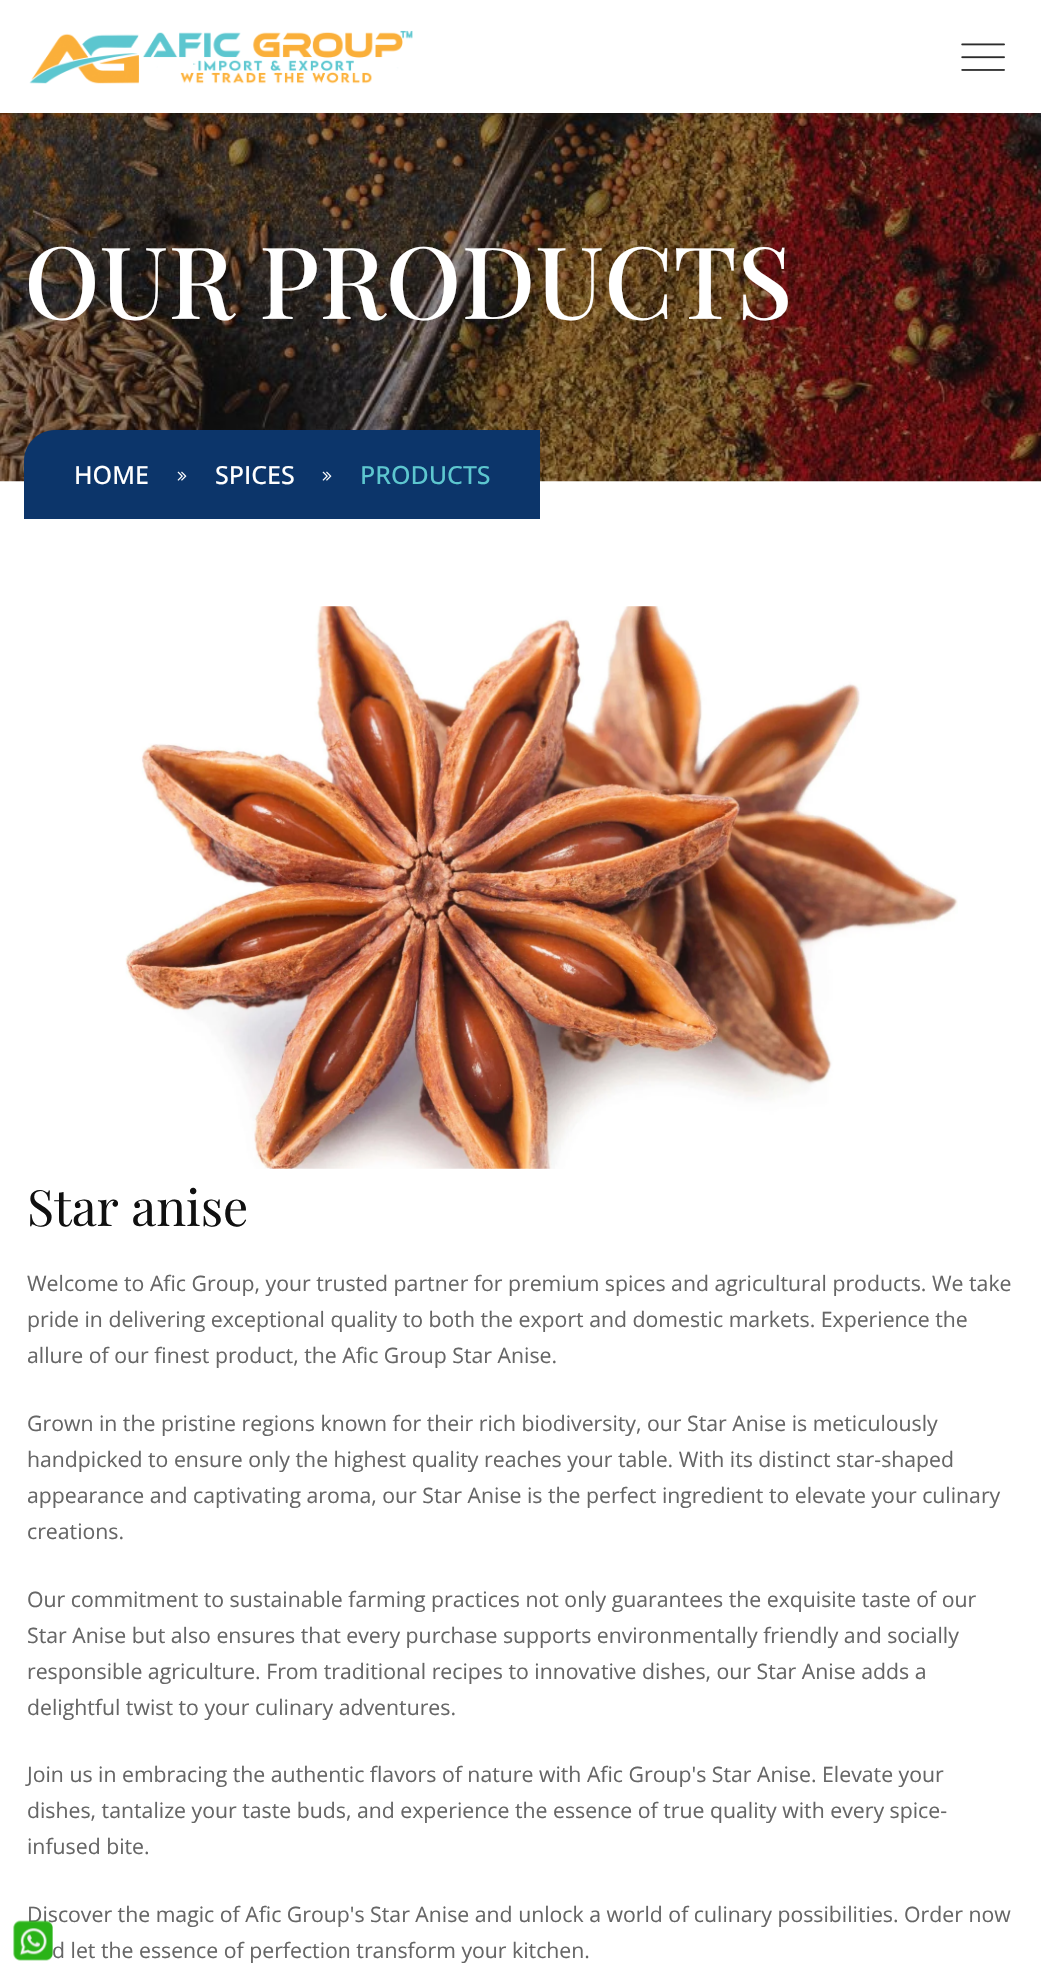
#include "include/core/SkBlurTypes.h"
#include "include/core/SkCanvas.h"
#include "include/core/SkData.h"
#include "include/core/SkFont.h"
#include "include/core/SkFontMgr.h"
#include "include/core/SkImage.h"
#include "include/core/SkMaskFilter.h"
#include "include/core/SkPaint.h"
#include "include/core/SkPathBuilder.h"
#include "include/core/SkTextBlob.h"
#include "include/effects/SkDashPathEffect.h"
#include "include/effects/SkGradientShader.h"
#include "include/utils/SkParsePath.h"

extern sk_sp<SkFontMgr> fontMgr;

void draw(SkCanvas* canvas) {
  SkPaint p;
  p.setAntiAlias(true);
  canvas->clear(SK_ColorWHITE);
  canvas->drawImageRect(SkImages::DeferredFromEncodedData(SkData::MakeFromFileName("images/1.png")), SkRect::MakeLTRB(29, 30, 413, 85), SkSamplingOptions());
  canvas->drawImageRect(SkImages::DeferredFromEncodedData(SkData::MakeFromFileName("images/2.png")), SkRect::MakeLTRB(961, 43, 1005, 71), SkSamplingOptions());
  canvas->drawImageRect(SkImages::DeferredFromEncodedData(SkData::MakeFromFileName("images/3.png")), SkRect::MakeLTRB(0, 113, 1041, 482), SkSamplingOptions());
  p.setColor(SkColorSetRGB(12, 53, 106));
  canvas->drawPath(SkPathBuilder().moveTo(55, 430).lineTo(540, 430).lineTo(540, 519).lineTo(24, 519).lineTo(24, 461).cubicTo(24, 444, 38, 430, 55, 430).close().detach(), p);
  canvas->drawImageRect(SkImages::DeferredFromEncodedData(SkData::MakeFromFileName("images/4.png")), SkRect::MakeLTRB(177, 471, 187, 481), SkSamplingOptions());
  canvas->drawImageRect(SkImages::DeferredFromEncodedData(SkData::MakeFromFileName("images/4.png")), SkRect::MakeLTRB(322, 471, 332, 481), SkSamplingOptions());
  canvas->drawImageRect(SkImages::DeferredFromEncodedData(SkData::MakeFromFileName("images/5.png")), SkRect::MakeLTRB(125, 606, 958, 1169), SkSamplingOptions());
  SkFont font1(fontMgr->matchFamilyStyle("Playfair Display", SkFontStyle(500, SkFontStyle::kNormal_Width, SkFontStyle::kUpright_Slant)), 100);
  font1.setSubpixel(true);
  p.setColor(SK_ColorWHITE);
  canvas->drawString("OUR PRODUCTS", 24, 319, font1, p);
  SkFont font2(fontMgr->matchFamilyStyle("Open Sans", SkFontStyle(500, SkFontStyle::kNormal_Width, SkFontStyle::kUpright_Slant)), 25);
  font2.setSubpixel(true);
  canvas->drawString("HOME", 74, 484, font2, p);
  canvas->drawString("SPICES", 215, 484, font2, p);
  p.setColor(SkColorSetRGB(93, 199, 207));
  canvas->drawString("PRODUCTS", 360, 484, font2, p);
  SkFont font3(fontMgr->matchFamilyStyle("Playfair Display", SkFontStyle::Normal()), 50);
  font3.setSubpixel(true);
  p.setColor(SkColorSetRGB(16, 16, 16));
  canvas->drawString("Star anise", 27, 1226, font3, p);
  SkFont font4(fontMgr->matchFamilyStyle("Open Sans", SkFontStyle::Normal()), 21.25f);
  font4.setSubpixel(true);
  p.setColor(SkColorSetRGB(102, 102, 102));
  canvas->drawString("Welcome to Afic Group, your trusted partner for premium spices and agricultural products. We take", 27, 1291, font4, p);
  canvas->drawString("pride in delivering exceptional quality to both the export and domestic markets. Experience the", 27, 1327, font4, p);
  canvas->drawString("allure of our finest product, the Afic Group Star Anise.", 27, 1363, font4, p);
  canvas->drawString("Grown in the pristine regions known for their rich biodiversity, our Star Anise is meticulously", 27, 1431, font4, p);
  canvas->drawString("handpicked to ensure only the highest quality reaches your table. With its distinct star-shaped", 27, 1467, font4, p);
  canvas->drawString("appearance and captivating aroma, our Star Anise is the perfect ingredient to elevate your culinary", 27, 1503, font4, p);
  canvas->drawString("creations.", 27, 1539, font4, p);
  canvas->drawString("Our commitment to sustainable farming practices not only guarantees the exquisite taste of our", 27, 1607, font4, p);
  canvas->drawString("Star Anise but also ensures that every purchase supports environmentally friendly and socially", 27, 1643, font4, p);
  canvas->drawString("responsible agriculture. From traditional recipes to innovative dishes, our Star Anise adds a", 27, 1679, font4, p);
  canvas->drawString("delightful twist to your culinary adventures.", 27, 1715, font4, p);
  canvas->drawString("Join us in embracing the authentic flavors of nature with Afic Group's Star Anise. Elevate your", 27, 1782, font4, p);
  canvas->drawString("dishes, tantalize your taste buds, and experience the essence of true quality with every spice-", 27, 1818, font4, p);
  canvas->drawString("infused bite.", 27, 1854, font4, p);
  canvas->drawString("Discover the magic of Afic Group's Star Anise and unlock a world of culinary possibilities. Order now", 27, 1922, font4, p);
  canvas->drawString("d let the essence of perfection transform your kitchen.", 52, 1958, font4, p);
  canvas->drawImageRect(SkImages::DeferredFromEncodedData(SkData::MakeFromFileName("images/6.png")), SkRect::MakeLTRB(13, 1920, 53, 1961), SkSamplingOptions());
}
